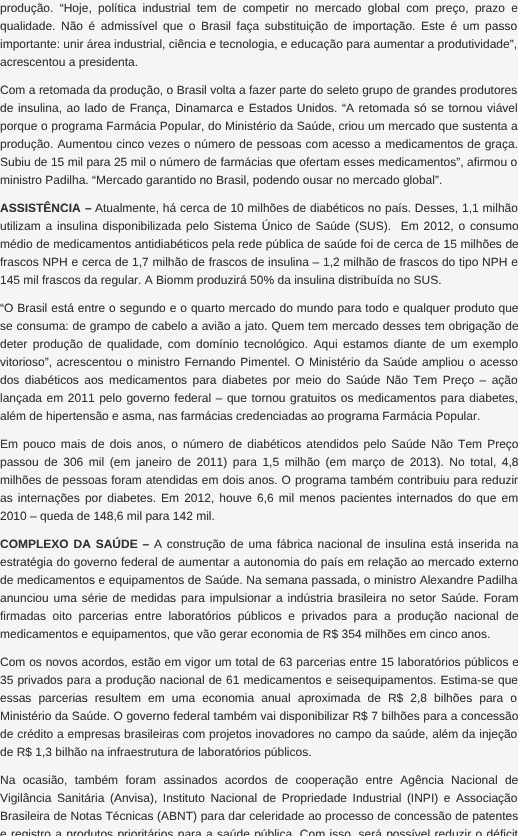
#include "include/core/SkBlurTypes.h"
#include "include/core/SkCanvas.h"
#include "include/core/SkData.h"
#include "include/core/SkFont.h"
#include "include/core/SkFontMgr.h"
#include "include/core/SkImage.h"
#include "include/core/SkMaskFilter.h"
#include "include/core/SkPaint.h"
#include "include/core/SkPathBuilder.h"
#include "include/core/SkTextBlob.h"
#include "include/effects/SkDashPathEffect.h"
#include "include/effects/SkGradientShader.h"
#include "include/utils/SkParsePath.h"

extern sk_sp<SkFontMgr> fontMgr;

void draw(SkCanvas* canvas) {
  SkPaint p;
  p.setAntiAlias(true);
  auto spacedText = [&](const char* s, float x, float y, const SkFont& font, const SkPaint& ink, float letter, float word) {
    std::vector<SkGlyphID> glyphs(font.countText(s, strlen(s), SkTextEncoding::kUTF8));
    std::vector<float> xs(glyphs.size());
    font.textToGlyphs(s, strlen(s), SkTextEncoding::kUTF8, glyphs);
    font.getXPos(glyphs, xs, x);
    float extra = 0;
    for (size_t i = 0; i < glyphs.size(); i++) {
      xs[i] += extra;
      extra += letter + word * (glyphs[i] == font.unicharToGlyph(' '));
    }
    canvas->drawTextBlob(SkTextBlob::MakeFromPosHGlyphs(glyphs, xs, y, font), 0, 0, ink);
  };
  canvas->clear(SkColorSetRGB(245, 245, 245));
  SkFont font1(fontMgr->matchFamilyStyle("Liberation Sans", SkFontStyle::Normal()), 12);
  font1.setSubpixel(true);
  p.setColor(SkColorSetRGB(51, 51, 51));
  spacedText("produção. “Hoje, política industrial tem de competir no mercado global com preço, prazo e", 0, 12, font1, p, 0, 3);
  spacedText("qualidade. Não é admissível que o Brasil faça substituição de importação. Este é um passo", 0, 30, font1, p, 0, 2.25f);
  canvas->drawString("importante: unir área industrial, ciência e tecnologia, e educação para aumentar a produtividade”,", 0, 48, font1, p);
  canvas->drawString("acrescentou a presidenta.", 0, 66, font1, p);
  spacedText("Com a retomada da produção, o Brasil volta a fazer parte do seleto grupo de grandes produtores", 0, 94, font1, p, 0, 0.1f);
  spacedText("de insulina, ao lado de França, Dinamarca e Estados Unidos. “A retomada só se tornou viável", 0, 112, font1, p, 0, 1.25f);
  spacedText("porque o programa Farmácia Popular, do Ministério da Saúde, criou um mercado que sustenta a", 0, 130, font1, p, 0, 0.25f);
  spacedText("produção. Aumentou cinco vezes o número de pessoas com acesso a medicamentos de graça.", 0, 148, font1, p, 0, 0.75f);
  spacedText("Subiu de 15 mil para 25 mil o número de farmácias que ofertam esses medicamentos”, afirmou o", 0, 166, font1, p, 0, 0.1f);
  canvas->drawString("ministro Padilha. “Mercado garantido no Brasil, podendo ousar no mercado global”.", 0, 184, font1, p);
  SkFont font2(fontMgr->matchFamilyStyle("Liberation Sans", SkFontStyle::Bold()), 12);
  font2.setSubpixel(true);
  spacedText("ASSISTÊNCIA –", 0, 212, font2, p, 0, 1);
  spacedText("Atualmente, há cerca de 10 milhões de diabéticos no país. Desses, 1,1 milhão", 95, 212, font1, p, 0, 0.5f);
  spacedText("utilizam a insulina disponibilizada pelo Sistema Único de Saúde (SUS).  Em 2012, o consumo", 0, 230, font1, p, 0, 1.5f);
  spacedText("médio de medicamentos antidiabéticos pela rede pública de saúde foi de cerca de 15 milhões de", 0, 248, font1, p, 0, 0.25f);
  spacedText("frascos NPH e cerca de 1,7 milhão de frascos de insulina – 1,2 milhão de frascos do tipo NPH e", 0, 266, font1, p, 0, 0.4f);
  canvas->drawString("145 mil frascos da regular. A Biomm produzirá 50% da insulina distribuída no SUS.", 0, 284, font1, p);
  spacedText("“O Brasil está entre o segundo e o quarto mercado do mundo para todo e qualquer produto que", 0, 312, font1, p, 0, 0.6f);
  spacedText("se consuma: de grampo de cabelo a avião a jato. Quem tem mercado desses tem obrigação de", 0, 330, font1, p, 0, 0.6f);
  spacedText("deter produção de qualidade, com domínio tecnológico. Aqui estamos diante de um exemplo", 0, 348, font1, p, 0, 2.1f);
  spacedText("vitorioso”, acrescentou o ministro Fernando Pimentel. O Ministério da Saúde ampliou o acesso", 0, 366, font1, p, 0, 1.25f);
  spacedText("dos diabéticos aos medicamentos para diabetes por meio do Saúde Não Tem Preço – ação", 0, 384, font1, p, 0, 2.1f);
  spacedText("lançada em 2011 pelo governo federal – que tornou gratuitos os medicamentos para diabetes,", 0, 402, font1, p, 0, 1.25f);
  canvas->drawString("além de hipertensão e asma, nas farmácias credenciadas ao programa Farmácia Popular.", 0, 420, font1, p);
  spacedText("Em pouco mais de dois anos, o número de diabéticos atendidos pelo Saúde Não Tem Preço", 0, 448, font1, p, 0, 1.75f);
  spacedText("passou de 306 mil (em janeiro de 2011) para 1,5 milhão (em março de 2013). No total, 4,8", 0, 466, font1, p, 0, 2.25f);
  spacedText("milhões de pessoas foram atendidas em dois anos. O programa também contribuiu para reduzir", 0, 484, font1, p, 0, 0.6f);
  spacedText("as internações por diabetes. Em 2012, houve 6,6 mil menos pacientes internados do que em", 0, 502, font1, p, 0, 1.75f);
  canvas->drawString("2010 – queda de 148,6 mil para 142 mil.", 0, 520, font1, p);
  spacedText("COMPLEXO DA SAÚDE –", 0, 548, font2, p, 0, 1.5f);
  spacedText("A construção de uma fábrica nacional de insulina está inserida na", 154, 548, font1, p, 0, 1.5f);
  spacedText("estratégia do governo federal de aumentar a autonomia do país em relação ao mercado externo", 0, 566, font1, p, 0, 0.5f);
  spacedText("de medicamentos e equipamentos de Saúde. Na semana passada, o ministro Alexandre Padilha", 0, 584, font1, p, 0, 0.25f);
  spacedText("anunciou uma série de medidas para impulsionar a indústria brasileira no setor Saúde. Foram", 0, 602, font1, p, 0, 1.5f);
  spacedText("firmadas oito parcerias entre laboratórios públicos e privados para a produção nacional de", 0, 620, font1, p, 0, 3.25f);
  canvas->drawString("medicamentos e equipamentos, que vão gerar economia de R$ 354 milhões em cinco anos.", 0, 638, font1, p);
  spacedText("Com os novos acordos, estão em vigor um total de 63 parcerias entre 15 laboratórios públicos e", 0, 666, font1, p, 0, 0.5f);
  spacedText("35 privados para a produção nacional de 61 medicamentos e seisequipamentos. Estima-se que", 0, 684, font1, p, 0, 0.75f);
  spacedText("essas parcerias resultem em uma economia anual aproximada de R$ 2,8 bilhões para o", 0, 702, font1, p, 0, 3.75f);
  spacedText("Ministério da Saúde. O governo federal também vai disponibilizar R$ 7 bilhões para a concessão", 0, 720, font1, p, 0, 0.25f);
  spacedText("de crédito a empresas brasileiras com projetos inovadores no campo da saúde, além da injeção", 0, 738, font1, p, 0, 0.5f);
  canvas->drawString("de R$ 1,3 bilhão na infraestrutura de laboratórios públicos.", 0, 756, font1, p);
  spacedText("Na ocasião, também foram assinados acordos de cooperação entre Agência Nacional de", 0, 784, font1, p, 0, 4);
  spacedText("Vigilância Sanitária (Anvisa), Instituto Nacional de Propriedade Industrial (INPI) e Associação", 0, 802, font1, p, 0, 2.25f);
  spacedText("Brasileira de Notas Técnicas (ABNT) para dar celeridade ao processo de concessão de patentes", 0, 820, font1, p, 0, 0.25f);
  spacedText("e registro a produtos prioritários para a saúde pública. Com isso, será possível reduzir o déficit", 0, 838, font1, p, 0, 1);
}
